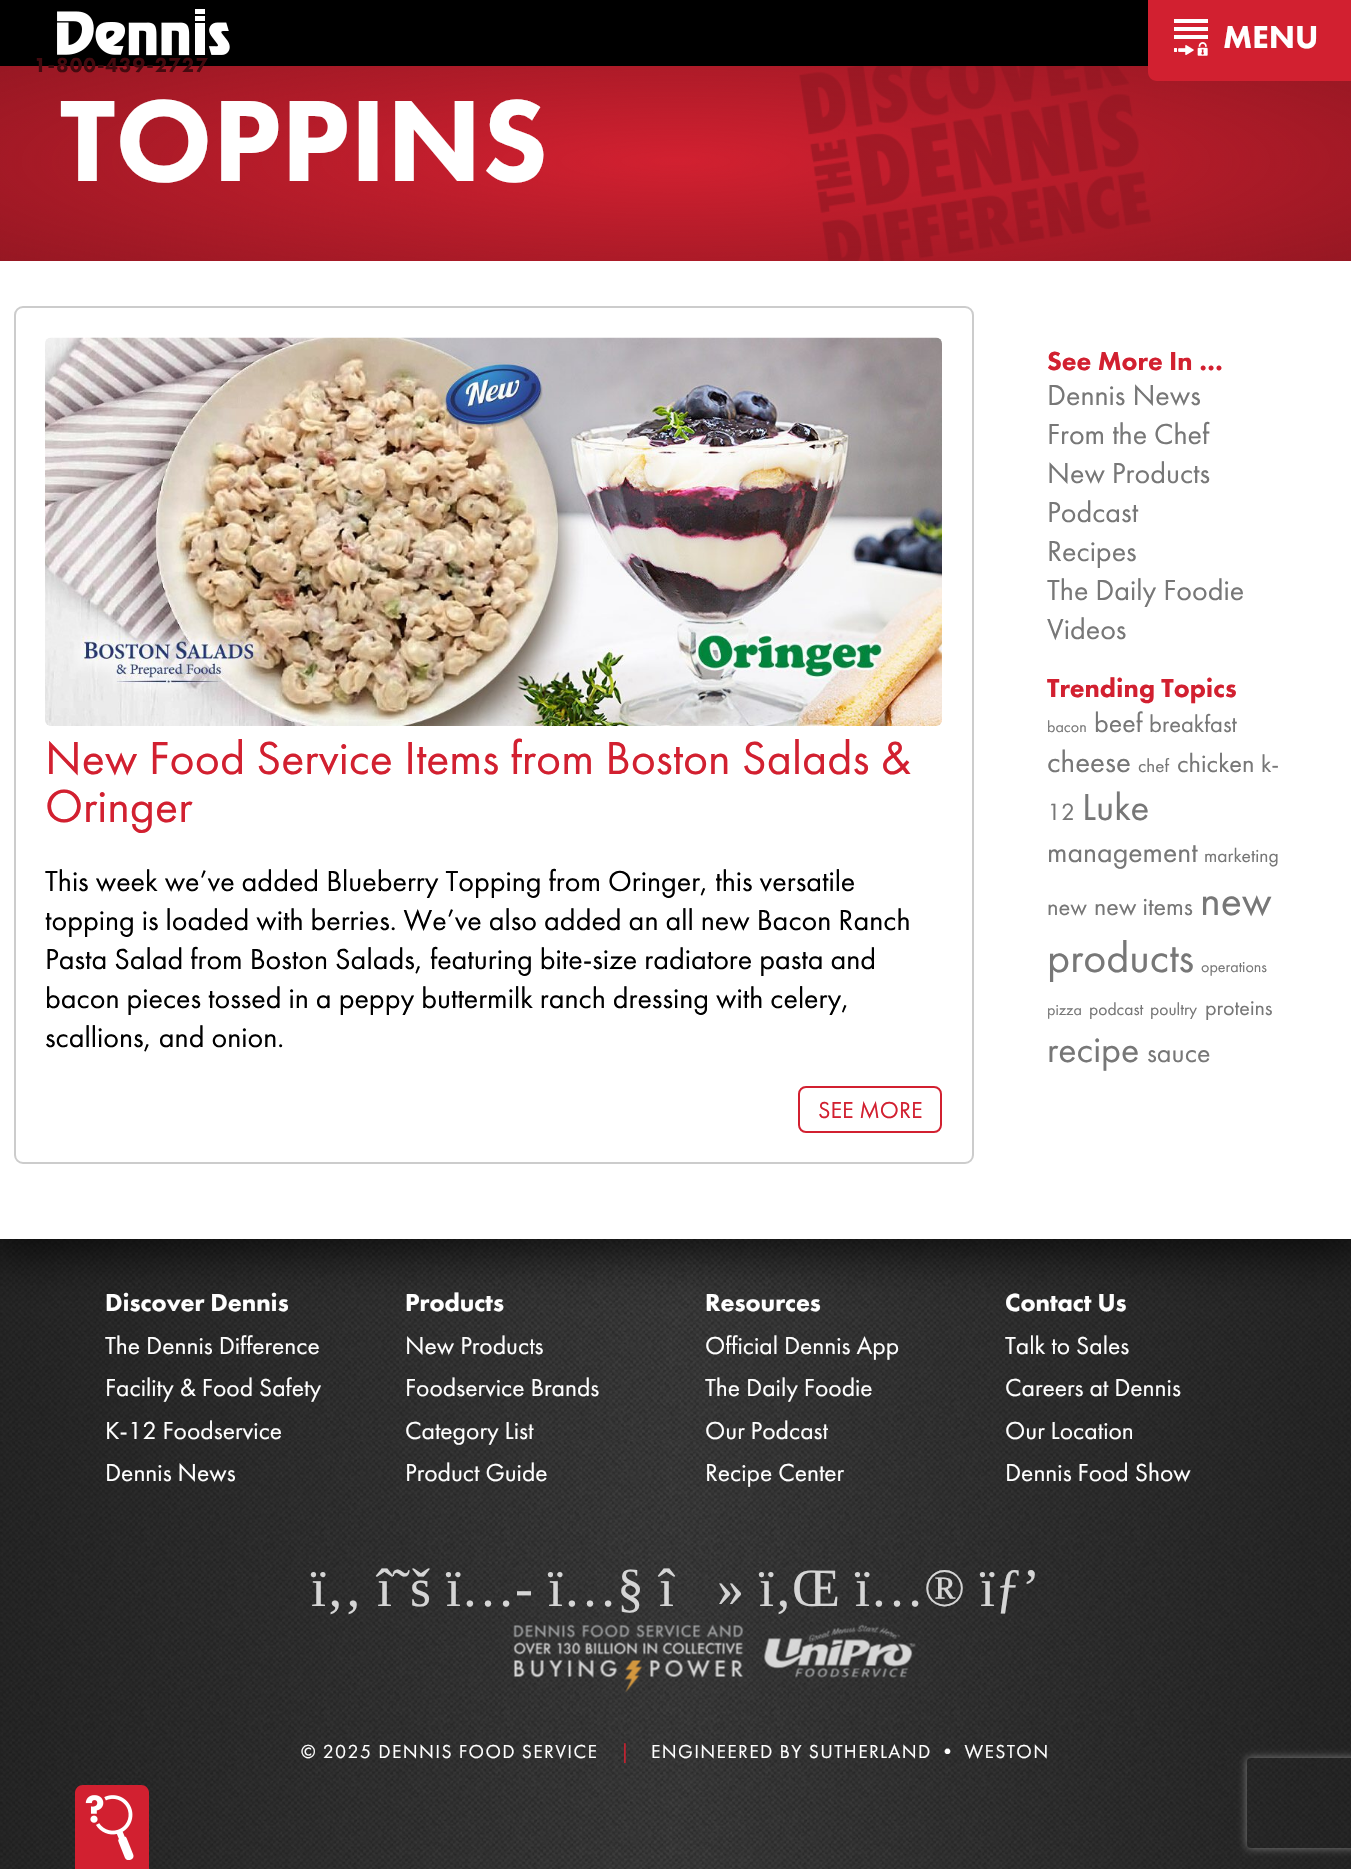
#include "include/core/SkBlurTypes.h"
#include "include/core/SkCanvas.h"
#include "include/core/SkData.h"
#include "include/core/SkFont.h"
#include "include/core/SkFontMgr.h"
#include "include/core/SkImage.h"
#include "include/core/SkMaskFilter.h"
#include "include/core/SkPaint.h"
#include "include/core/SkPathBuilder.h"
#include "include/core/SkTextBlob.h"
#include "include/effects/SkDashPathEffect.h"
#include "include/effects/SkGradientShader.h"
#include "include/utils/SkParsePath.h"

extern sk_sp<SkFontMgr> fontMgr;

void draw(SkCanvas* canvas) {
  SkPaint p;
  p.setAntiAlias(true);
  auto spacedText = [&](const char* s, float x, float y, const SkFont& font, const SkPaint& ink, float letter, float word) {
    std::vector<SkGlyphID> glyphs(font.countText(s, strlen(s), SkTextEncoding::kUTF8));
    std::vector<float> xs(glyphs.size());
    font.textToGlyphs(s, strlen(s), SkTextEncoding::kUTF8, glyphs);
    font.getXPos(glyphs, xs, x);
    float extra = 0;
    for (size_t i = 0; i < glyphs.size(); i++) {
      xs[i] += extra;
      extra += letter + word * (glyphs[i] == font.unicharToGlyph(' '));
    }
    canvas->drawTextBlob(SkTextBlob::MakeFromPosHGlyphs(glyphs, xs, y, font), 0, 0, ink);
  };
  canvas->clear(SK_ColorWHITE);
  canvas->drawImageRect(SkImages::DeferredFromEncodedData(SkData::MakeFromFileName("images/1.png")), SkRect::MakeLTRB(0, 1239, 1351, 1869), SkSamplingOptions());
  p.setColor(SkColorSetARGB(179, 0, 0, 0));
  p.setMaskFilter(SkMaskFilter::MakeBlur(kNormal_SkBlurStyle, 22.5f));
  canvas->drawRect(SkRect::MakeLTRB(-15, -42, 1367, 1254), p);
  p.setMaskFilter(nullptr);
  p.setColor(SK_ColorBLACK);
  canvas->drawRect(SkRect::MakeLTRB(0, 0, 1148, 66), p);
  p.setColor(SkColorSetRGB(210, 32, 48));
  canvas->drawRect(SkRect::MakeLTRB(0, 66, 1351, 261), p);
  canvas->drawImageRect(SkImages::DeferredFromEncodedData(SkData::MakeFromFileName("images/4.png")), SkRect::MakeLTRB(0, 66, 1351, 261), SkSamplingOptions());
  canvas->drawPath(SkPathBuilder().moveTo(1157, -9).lineTo(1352, -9).lineTo(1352, 81).lineTo(1157, 81).cubicTo(1152, 81, 1148, 77, 1148, 72).lineTo(1148, 0).cubicTo(1148, -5, 1152, -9, 1157, -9).close().detach(), p);
  canvas->drawImageRect(SkImages::DeferredFromEncodedData(SkData::MakeFromFileName("images/2.png")), SkRect::MakeLTRB(1174, 19, 1208, 56), SkSamplingOptions());
  canvas->drawImageRect(SkImages::DeferredFromEncodedData(SkData::MakeFromFileName("images/3.png")), SkRect::MakeLTRB(57, 9, 230, 56), SkSamplingOptions());
  p.setColor(SK_ColorWHITE);
  canvas->drawRect(SkRect::MakeLTRB(0, 261, 1351, 1239), p);
  p.setStyle(SkPaint::kStroke_Style);
  p.setStrokeWidth(2);
  p.setColor(SkColorSetRGB(204, 204, 204));
  canvas->drawRoundRect(SkRect::MakeLTRB(15, 307, 973, 1163), 8, 8, p);
  canvas->drawImageRect(SkImages::DeferredFromEncodedData(SkData::MakeFromFileName("images/5.png")), SkRect::MakeLTRB(45, 337, 942, 726), SkSamplingOptions());
  p.setColor(SkColorSetRGB(210, 32, 48));
  canvas->drawRoundRect(SkRect::MakeLTRB(799, 1087, 941, 1132), 7, 7, p);
  canvas->drawImageRect(SkImages::DeferredFromEncodedData(SkData::MakeFromFileName("images/6.png")), SkRect::MakeLTRB(513, 1624, 916, 1692), SkSamplingOptions());
  p.setStyle(SkPaint::kFill_Style);
  canvas->drawPath(SkPathBuilder().moveTo(83, 1785).lineTo(141, 1785).cubicTo(145.5f, 1785, 149, 1788.5f, 149, 1793).lineTo(149, 1869).lineTo(75, 1869).lineTo(75, 1793).cubicTo(75, 1788.5f, 78.5f, 1785, 83, 1785).close().detach(), p);
  canvas->drawImageRect(SkImages::DeferredFromEncodedData(SkData::MakeFromFileName("images/7.png")), SkRect::MakeLTRB(85, 1795, 134, 1860), SkSamplingOptions());
  canvas->save();
  canvas->clipPath(SkPathBuilder(SkPathFillType::kEvenOdd).moveTo(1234, 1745).lineTo(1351, 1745).lineTo(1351, 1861).lineTo(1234, 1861).close().moveTo(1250, 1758).lineTo(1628, 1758).cubicTo(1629.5f, 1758, 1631, 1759.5f, 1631, 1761).lineTo(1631, 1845).cubicTo(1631, 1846.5f, 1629.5f, 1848, 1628, 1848).lineTo(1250, 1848).cubicTo(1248.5f, 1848, 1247, 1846.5f, 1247, 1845).lineTo(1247, 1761).cubicTo(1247, 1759.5f, 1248.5f, 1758, 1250, 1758).close().detach(), true);
  p.setColor(SkColorSetRGB(128, 128, 128));
  p.setMaskFilter(SkMaskFilter::MakeBlur(kNormal_SkBlurStyle, 4));
  canvas->drawRoundRect(SkRect::MakeLTRB(1247, 1758, 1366, 1848), 3, 3, p);
  p.setMaskFilter(nullptr);
  canvas->restore();
  SkFont font1(fontMgr->matchFamilyStyle("Futura PT", SkFontStyle(900, SkFontStyle::kNormal_Width, SkFontStyle::kUpright_Slant)), 33);
  font1.setSubpixel(true);
  p.setColor(SK_ColorWHITE);
  canvas->drawString("MENU", 1223, 48, font1, p);
  SkFont font2(fontMgr->matchFamilyStyle("Futura PT", SkFontStyle(900, SkFontStyle::kNormal_Width, SkFontStyle::kUpright_Slant)), 21);
  font2.setSubpixel(true);
  p.setColor(SkColorSetRGB(67, 10, 15));
  spacedText("1-800-439-2727", 34, 72, font2, p, 1, 0);
  SkFont font3(fontMgr->matchFamilyStyle("Futura PT", SkFontStyle(900, SkFontStyle::kNormal_Width, SkFontStyle::kUpright_Slant)), 120);
  font3.setSubpixel(true);
  p.setColor(SK_ColorWHITE);
  canvas->drawString("TOPPINS", 60, 181, font3, p);
  SkFont font4(fontMgr->matchFamilyStyle("Futura PT", SkFontStyle::Normal()), 48);
  font4.setSubpixel(true);
  p.setColor(SkColorSetRGB(210, 32, 48));
  canvas->drawString("New Food Service Items from Boston Salads &", 45, 774, font4, p);
  canvas->drawString("Oringer", 45, 822, font4, p);
  SkFont font5(fontMgr->matchFamilyStyle("Futura PT", SkFontStyle::Normal()), 30);
  font5.setSubpixel(true);
  p.setColor(SK_ColorBLACK);
  canvas->drawString("This week we’ve added Blueberry Topping from Oringer, this versatile", 45, 891, font5, p);
  canvas->drawString("topping is loaded with berries. We’ve also added an all new Bacon Ranch", 45, 930, font5, p);
  canvas->drawString("Pasta Salad from Boston Salads, featuring bite-size radiatore pasta and", 45, 969, font5, p);
  canvas->drawString("bacon pieces tossed in a peppy buttermilk ranch dressing with celery,", 45, 1008, font5, p);
  canvas->drawString("scallions, and onion.", 45, 1047, font5, p);
  SkFont font6(fontMgr->matchFamilyStyle("Futura PT", SkFontStyle::Normal()), 24);
  font6.setSubpixel(true);
  p.setColor(SkColorSetRGB(210, 32, 48));
  canvas->drawString("SEE MORE", 818, 1118, font6, p);
  SkFont font7(fontMgr->matchFamilyStyle("Futura PT", SkFontStyle(900, SkFontStyle::kNormal_Width, SkFontStyle::kUpright_Slant)), 27);
  font7.setSubpixel(true);
  canvas->drawString("See More In …", 1047, 370, font7, p);
  p.setColor(SkColorSetRGB(119, 119, 119));
  canvas->drawString("Dennis News", 1047, 405, font5, p);
  canvas->drawString("From the Chef", 1047, 444, font5, p);
  canvas->drawString("New Products", 1047, 483, font5, p);
  canvas->drawString("Podcast", 1047, 522, font5, p);
  canvas->drawString("Recipes", 1047, 561, font5, p);
  canvas->drawString("The Daily Foodie", 1047, 600, font5, p);
  canvas->drawString("Videos", 1047, 639, font5, p);
  p.setColor(SkColorSetRGB(210, 32, 48));
  canvas->drawString("Trending Topics", 1047, 697, font7, p);
  SkFont font8(fontMgr->matchFamilyStyle("Futura PT", SkFontStyle::Normal()), 16);
  font8.setSubpixel(true);
  p.setColor(SkColorSetRGB(119, 119, 119));
  canvas->drawString("bacon", 1047, 732, font8, p);
  SkFont font9(fontMgr->matchFamilyStyle("Futura PT", SkFontStyle::Normal()), 28);
  font9.setSubpixel(true);
  canvas->drawString("beef", 1094, 732, font9, p);
  SkFont font10(fontMgr->matchFamilyStyle("Futura PT", SkFontStyle::Normal()), 24.5f);
  font10.setSubpixel(true);
  canvas->drawString("breakfast", 1149, 732, font10, p);
  SkFont font11(fontMgr->matchFamilyStyle("Futura PT", SkFontStyle::Normal()), 31);
  font11.setSubpixel(true);
  canvas->drawString("cheese", 1047, 772, font11, p);
  SkFont font12(fontMgr->matchFamilyStyle("Futura PT", SkFontStyle::Normal()), 19);
  font12.setSubpixel(true);
  canvas->drawString("chef", 1138, 772, font12, p);
  SkFont font13(fontMgr->matchFamilyStyle("Futura PT", SkFontStyle::Normal()), 26.5f);
  font13.setSubpixel(true);
  canvas->drawString("chicken", 1177, 772, font13, p);
  canvas->drawString("k-", 1261, 772, font10, p);
  canvas->drawString("12", 1047, 820, font10, p);
  SkFont font14(fontMgr->matchFamilyStyle("Futura PT", SkFontStyle::Normal()), 39);
  font14.setSubpixel(true);
  canvas->drawString("Luke", 1082, 820, font14, p);
  SkFont font15(fontMgr->matchFamilyStyle("Futura PT", SkFontStyle::Normal()), 29.75f);
  font15.setSubpixel(true);
  canvas->drawString("management", 1047, 862, font15, p);
  SkFont font16(fontMgr->matchFamilyStyle("Futura PT", SkFontStyle::Normal()), 19.5f);
  font16.setSubpixel(true);
  canvas->drawString("marketing", 1204, 862, font16, p);
  canvas->drawString("new", 1047, 915, font10, p);
  SkFont font17(fontMgr->matchFamilyStyle("Futura PT", SkFontStyle::Normal()), 26);
  font17.setSubpixel(true);
  canvas->drawString("new items", 1094, 915, font17, p);
  SkFont font18(fontMgr->matchFamilyStyle("Futura PT", SkFontStyle::Normal()), 44);
  font18.setSubpixel(true);
  canvas->drawString("new", 1200, 915, font18, p);
  canvas->drawString("products", 1047, 972, font18, p);
  canvas->drawString("operations", 1201, 972, font8, p);
  canvas->drawString("pizza", 1047, 1015, font8, p);
  SkFont font19(fontMgr->matchFamilyStyle("Futura PT", SkFontStyle::Normal()), 17.5f);
  font19.setSubpixel(true);
  canvas->drawString("podcast", 1089, 1015, font19, p);
  canvas->drawString("poultry", 1150, 1015, font19, p);
  SkFont font20(fontMgr->matchFamilyStyle("Futura PT", SkFontStyle::Normal()), 22);
  font20.setSubpixel(true);
  canvas->drawString("proteins", 1205, 1015, font20, p);
  SkFont font21(fontMgr->matchFamilyStyle("Futura PT", SkFontStyle::Normal()), 38);
  font21.setSubpixel(true);
  canvas->drawString("recipe", 1047, 1062, font21, p);
  canvas->drawString("sauce", 1147, 1062, font9, p);
  SkFont font22(fontMgr->matchFamilyStyle("Futura PT", SkFontStyle(900, SkFontStyle::kNormal_Width, SkFontStyle::kUpright_Slant)), 25.5f);
  font22.setSubpixel(true);
  p.setColor(SK_ColorWHITE);
  canvas->drawString("Discover Dennis", 105, 1311, font22, p);
  SkFont font23(fontMgr->matchFamilyStyle("Futura PT", SkFontStyle::Normal()), 25.5f);
  font23.setSubpixel(true);
  canvas->drawString("The Dennis Difference", 105, 1354, font23, p);
  canvas->drawString("Facility & Food Safety", 105, 1396, font23, p);
  canvas->drawString("K-12 Foodservice", 105, 1439, font23, p);
  canvas->drawString("Dennis News", 105, 1481, font23, p);
  canvas->drawString("Products", 405, 1311, font22, p);
  canvas->drawString("New Products", 405, 1354, font23, p);
  canvas->drawString("Foodservice Brands", 405, 1396, font23, p);
  canvas->drawString("Category List", 405, 1439, font23, p);
  canvas->drawString("Product Guide", 405, 1481, font23, p);
  canvas->drawString("Resources", 705, 1311, font22, p);
  canvas->drawString("Official Dennis App", 705, 1354, font23, p);
  canvas->drawString("The Daily Foodie", 705, 1396, font23, p);
  canvas->drawString("Our Podcast", 705, 1439, font23, p);
  canvas->drawString("Recipe Center", 705, 1481, font23, p);
  canvas->drawString("Contact Us", 1005, 1311, font22, p);
  canvas->drawString("Talk to Sales", 1005, 1354, font23, p);
  canvas->drawString("Careers at Dennis", 1005, 1396, font23, p);
  canvas->drawString("Our Location", 1005, 1439, font23, p);
  canvas->drawString("Dennis Food Show", 1005, 1481, font23, p);
  SkFont font24(fontMgr->matchFamilyStyle("Liberation Serif", SkFontStyle::Normal()), 54);
  font24.setSubpixel(true);
  p.setColor(SkColorSetRGB(213, 213, 213));
  canvas->drawString("ï‚‚", 311, 1606, font24, p);
  canvas->drawString("î˜š", 377, 1606, font24, p);
  canvas->drawString("ï…-", 446, 1606, font24, p);
  canvas->drawString("ï…§", 548, 1606, font24, p);
  canvas->drawString("î", 659, 1606, font24, p);
  canvas->drawString("»", 717, 1606, font24, p);
  canvas->drawString("ï‚Œ", 759, 1606, font24, p);
  canvas->drawString("ï…®", 855, 1606, font24, p);
  canvas->drawString("ïƒ’", 980, 1606, font24, p);
  p.setColor(SK_ColorWHITE);
  spacedText("© 2025 DENNIS FOOD SERVICE", 301, 1758, font16, p, 1.35f, 0);
  p.setColor(SkColorSetRGB(210, 32, 48));
  spacedText("|", 620, 1758, font16, p, 1.35f, 0);
  p.setColor(SK_ColorWHITE);
  spacedText("ENGINEERED BY SUTHERLAND • WESTON", 651, 1758, font16, p, 1.35f, 0);
}
